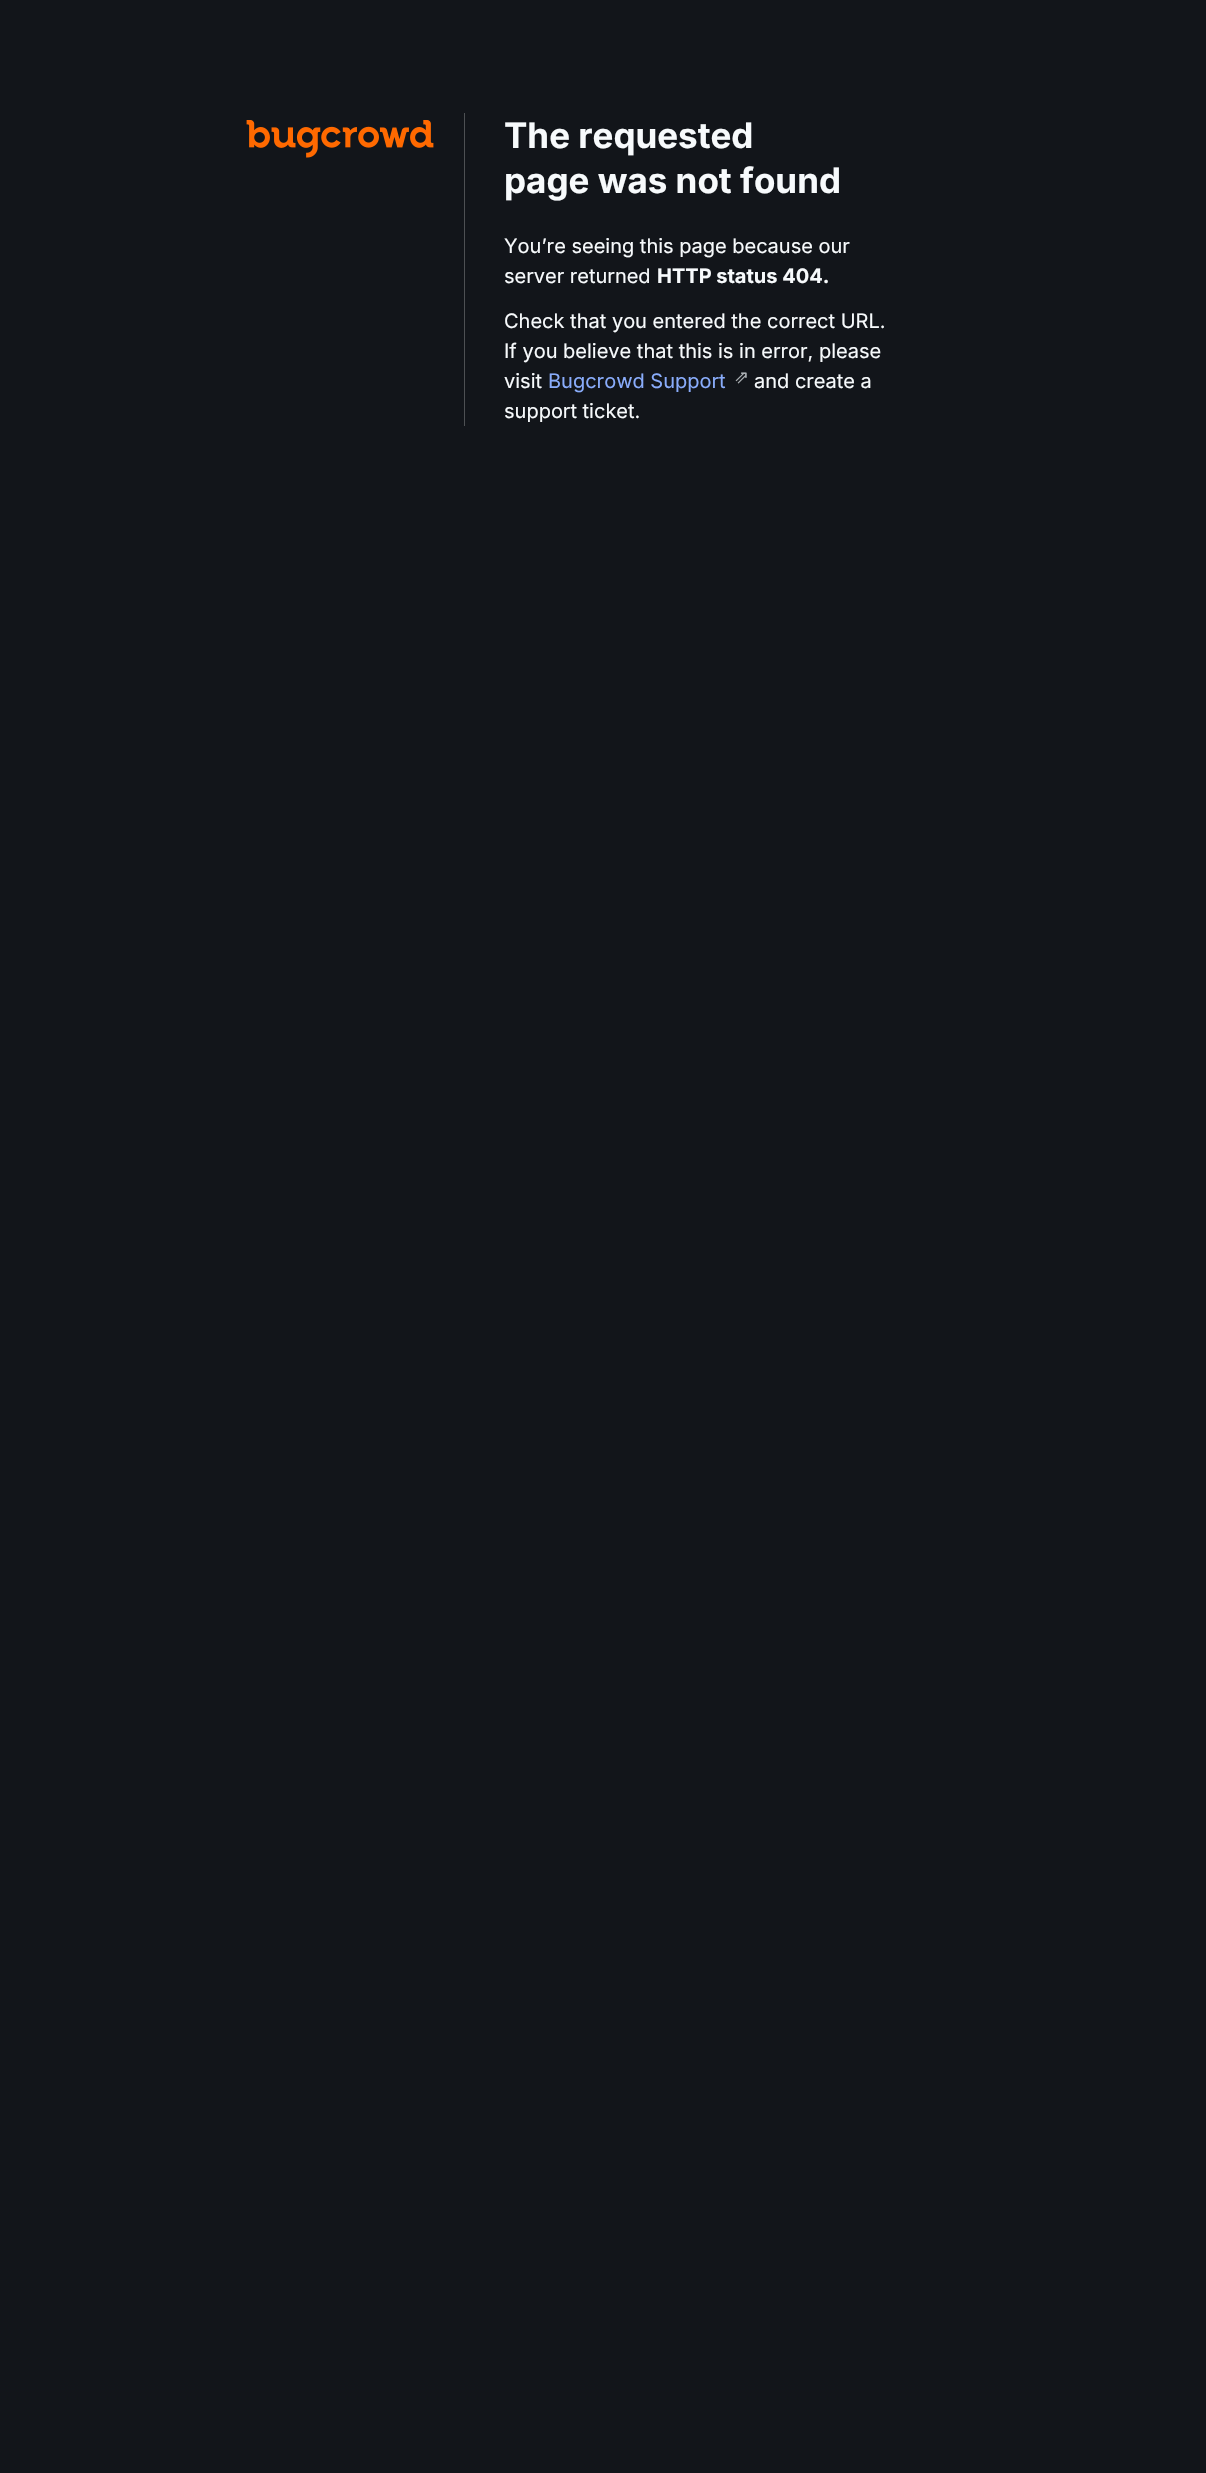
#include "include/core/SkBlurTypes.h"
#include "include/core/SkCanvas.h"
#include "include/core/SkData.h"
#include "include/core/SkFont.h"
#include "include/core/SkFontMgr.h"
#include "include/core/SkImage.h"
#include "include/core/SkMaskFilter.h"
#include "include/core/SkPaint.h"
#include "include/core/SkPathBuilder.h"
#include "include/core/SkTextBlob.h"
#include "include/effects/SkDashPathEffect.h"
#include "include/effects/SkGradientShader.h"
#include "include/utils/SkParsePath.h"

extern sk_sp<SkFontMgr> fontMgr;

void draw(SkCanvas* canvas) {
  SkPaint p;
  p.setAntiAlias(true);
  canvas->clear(SkColorSetRGB(18, 21, 26));
  canvas->drawImageRect(SkImages::DeferredFromEncodedData(SkData::MakeFromFileName("images/1.png")), SkRect::MakeLTRB(246, 120, 434, 158), SkSamplingOptions());
  p.setColor(SkColorSetRGB(77, 80, 83));
  canvas->drawRect(SkRect::MakeLTRB(464, 113, 465, 426), p);
  SkFont font1(fontMgr->matchFamilyStyle("Inter", SkFontStyle::Bold()), 35);
  font1.setSubpixel(true);
  p.setColor(SkColorSetRGB(247, 250, 252));
  canvas->drawString("The requested", 504, 148, font1, p);
  canvas->drawString("page was not found", 504, 193, font1, p);
  SkFont font2(fontMgr->matchFamilyStyle("Inter", SkFontStyle::Normal()), 20);
  font2.setSubpixel(true);
  canvas->drawString("You’re seeing this page because our", 504, 253, font2, p);
  canvas->drawString("server returned", 504, 283, font2, p);
  SkFont font3(fontMgr->matchFamilyStyle("Inter", SkFontStyle::Bold()), 20);
  font3.setSubpixel(true);
  canvas->drawString("HTTP status 404.", 657, 283, font3, p);
  canvas->drawString("Check that you entered the correct URL.", 504, 328, font2, p);
  canvas->drawString("If you believe that this is in error, please", 504, 358, font2, p);
  canvas->drawString("visit", 504, 388, font2, p);
  p.setColor(SkColorSetRGB(137, 172, 251));
  canvas->drawString("Bugcrowd Support", 548, 388, font2, p);
  SkFont font4(fontMgr->matchFamilyStyle("DejaVu Sans", SkFontStyle::Normal()), 18);
  font4.setSubpixel(true);
  p.setColor(SkColorSetRGB(173, 178, 182));
  canvas->drawString("⇗", 734, 383, font4, p);
  p.setColor(SkColorSetRGB(247, 250, 252));
  canvas->drawString("and create a", 754, 388, font2, p);
  canvas->drawString("support ticket.", 504, 418, font2, p);
}
